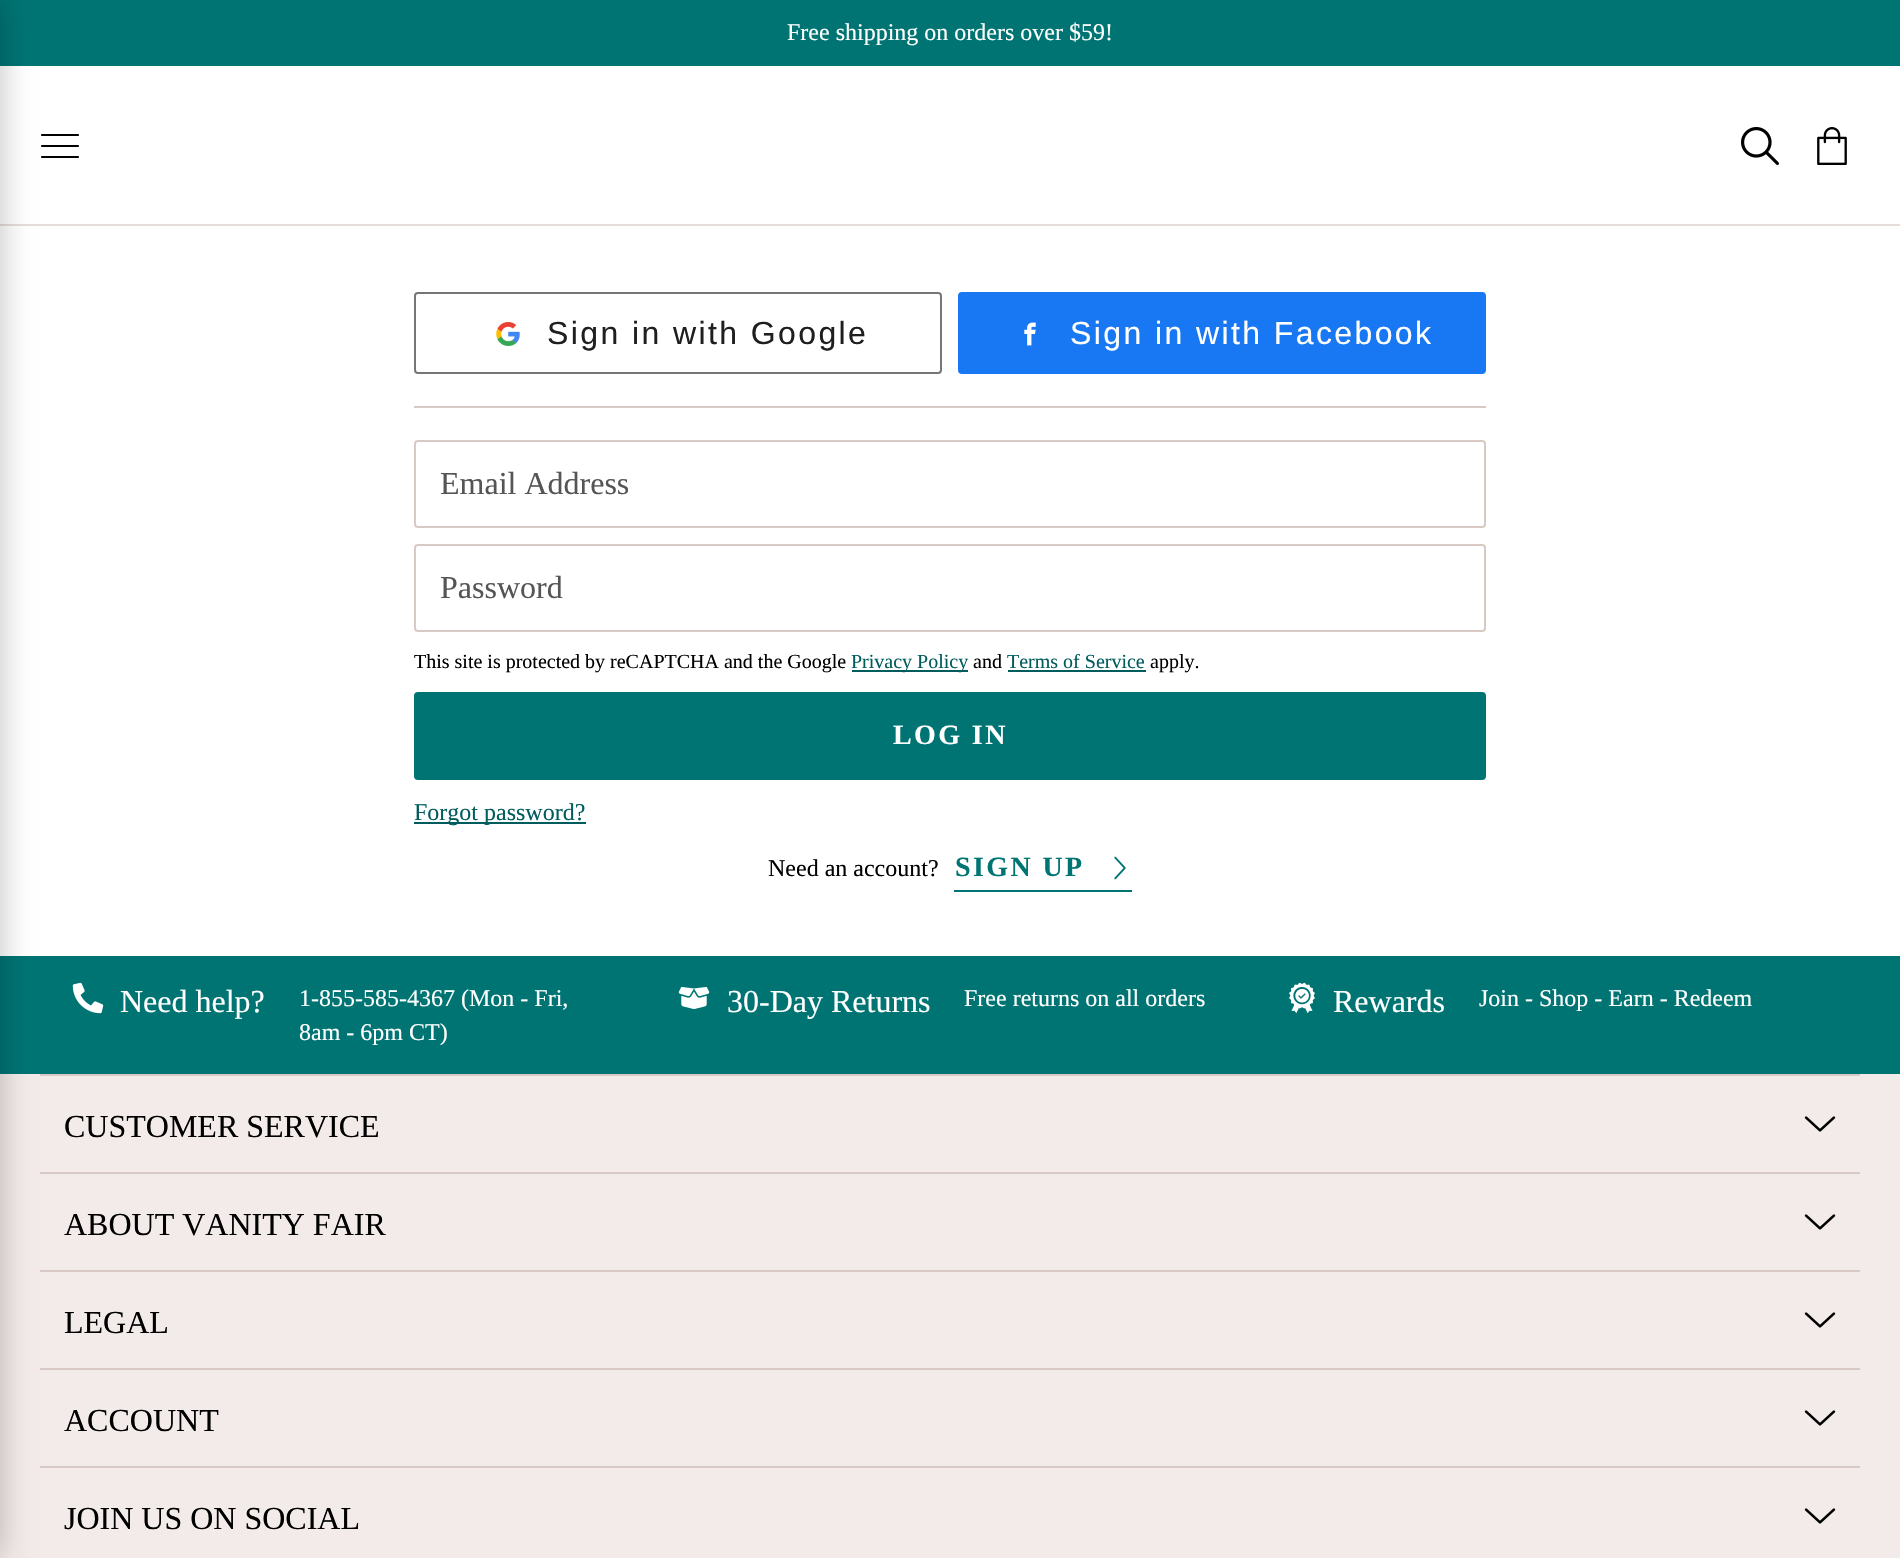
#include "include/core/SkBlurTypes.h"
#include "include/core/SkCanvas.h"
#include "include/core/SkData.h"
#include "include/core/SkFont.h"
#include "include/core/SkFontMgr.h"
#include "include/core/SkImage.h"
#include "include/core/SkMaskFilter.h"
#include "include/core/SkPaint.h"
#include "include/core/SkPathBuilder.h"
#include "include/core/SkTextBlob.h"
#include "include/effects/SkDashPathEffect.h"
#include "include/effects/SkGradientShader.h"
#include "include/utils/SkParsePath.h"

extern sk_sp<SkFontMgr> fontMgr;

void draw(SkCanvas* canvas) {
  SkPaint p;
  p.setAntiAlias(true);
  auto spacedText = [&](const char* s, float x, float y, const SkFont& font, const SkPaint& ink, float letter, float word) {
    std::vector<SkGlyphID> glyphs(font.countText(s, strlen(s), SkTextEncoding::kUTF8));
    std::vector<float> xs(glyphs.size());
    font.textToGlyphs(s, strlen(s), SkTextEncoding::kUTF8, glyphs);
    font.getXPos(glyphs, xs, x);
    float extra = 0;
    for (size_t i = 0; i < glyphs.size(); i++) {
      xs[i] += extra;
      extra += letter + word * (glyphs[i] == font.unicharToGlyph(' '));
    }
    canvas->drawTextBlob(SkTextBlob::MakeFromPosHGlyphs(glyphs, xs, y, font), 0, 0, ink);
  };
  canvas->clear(SK_ColorWHITE);
  p.setStyle(SkPaint::kStroke_Style);
  p.setStrokeWidth(2.2f);
  p.setStrokeCap(SkPaint::kRound_Cap);
  p.setStrokeJoin(SkPaint::kRound_Join);
  p.setColor(SK_ColorBLACK);
  canvas->drawPath(SkPathBuilder().moveTo(42, 157).lineTo(78, 157).moveTo(42, 146).lineTo(78, 146).moveTo(42, 135).lineTo(78, 135).detach(), p);
  p.setStyle(SkPaint::kFill_Style);
  p.setColor(SkColorSetRGB(230, 221, 218));
  canvas->drawRect(SkRect::MakeLTRB(0, 224, 1900, 226), p);
  p.setColor(SkColorSetRGB(0, 116, 115));
  canvas->drawRect(SkRect::MakeLTRB(0, 0, 1900, 66), p);
  p.setColor(SkColorSetRGB(242, 235, 233));
  canvas->drawRect(SkRect::MakeLTRB(0, 1074, 1900, 1558), p);
  p.setColor(SkColorSetRGB(0, 116, 115));
  canvas->drawRect(SkRect::MakeLTRB(0, 956, 1900, 1074), p);
  p.setColor(SkColorSetRGB(216, 201, 196));
  canvas->drawRect(SkRect::MakeLTRB(40, 1074, 1860, 1076), p);
  canvas->drawRect(SkRect::MakeLTRB(40, 1172, 1860, 1174), p);
  canvas->drawRect(SkRect::MakeLTRB(40, 1270, 1860, 1272), p);
  canvas->drawRect(SkRect::MakeLTRB(40, 1368, 1860, 1370), p);
  canvas->drawRect(SkRect::MakeLTRB(40, 1466, 1860, 1468), p);
  p.setColor(SkColorSetARGB(64, 0, 0, 0));
  p.setMaskFilter(SkMaskFilter::MakeBlur(kNormal_SkBlurStyle, 16));
  canvas->drawRect(SkRect::MakeLTRB(-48, 0, 0, 1558), p);
  p.setMaskFilter(nullptr);
  canvas->drawImageRect(SkImages::DeferredFromEncodedData(SkData::MakeFromFileName("images/1.png")), SkRect::MakeLTRB(1741, 127, 1779, 165), SkSamplingOptions());
  canvas->drawImageRect(SkImages::DeferredFromEncodedData(SkData::MakeFromFileName("images/2.png")), SkRect::MakeLTRB(1817, 127, 1847, 165), SkSamplingOptions());
  p.setStyle(SkPaint::kStroke_Style);
  p.setStrokeWidth(2);
  p.setStrokeCap(SkPaint::kButt_Cap);
  p.setStrokeJoin(SkPaint::kMiter_Join);
  p.setColor(SkColorSetRGB(116, 119, 117));
  canvas->drawRoundRect(SkRect::MakeLTRB(415, 293, 941, 373), 3, 3, p);
  canvas->drawImageRect(SkImages::DeferredFromEncodedData(SkData::MakeFromFileName("images/3.png")), SkRect::MakeLTRB(496, 322, 520, 346), SkSamplingOptions());
  p.setStyle(SkPaint::kFill_Style);
  p.setColor(SkColorSetRGB(24, 119, 242));
  canvas->drawRoundRect(SkRect::MakeLTRB(959, 293, 1485, 373), 3, 3, p);
  p.setStyle(SkPaint::kStroke_Style);
  canvas->drawRoundRect(SkRect::MakeLTRB(959, 293, 1485, 373), 3, 3, p);
  canvas->drawImageRect(SkImages::DeferredFromEncodedData(SkData::MakeFromFileName("images/4.png")), SkRect::MakeLTRB(1024, 322, 1036, 346), SkSamplingOptions());
  p.setStyle(SkPaint::kFill_Style);
  p.setColor(SkColorSetRGB(216, 201, 196));
  canvas->drawRect(SkRect::MakeLTRB(414, 406, 1486, 408), p);
  p.setStyle(SkPaint::kStroke_Style);
  canvas->drawRoundRect(SkRect::MakeLTRB(415, 441, 1485, 527), 3, 3, p);
  canvas->drawRoundRect(SkRect::MakeLTRB(415, 545, 1485, 631), 3, 3, p);
  p.setStyle(SkPaint::kFill_Style);
  p.setColor(SkColorSetRGB(0, 92, 93));
  canvas->drawRect(SkRect::MakeLTRB(852, 670, 968, 672), p);
  canvas->drawRect(SkRect::MakeLTRB(1008, 670, 1146, 672), p);
  p.setColor(SkColorSetRGB(0, 116, 115));
  canvas->drawRoundRect(SkRect::MakeLTRB(415, 693, 1485, 779), 3, 3, p);
  p.setStyle(SkPaint::kStroke_Style);
  canvas->drawRoundRect(SkRect::MakeLTRB(415, 693, 1485, 779), 3, 3, p);
  p.setStyle(SkPaint::kFill_Style);
  p.setColor(SkColorSetRGB(0, 92, 93));
  canvas->drawRect(SkRect::MakeLTRB(414, 822, 586, 824), p);
  p.setColor(SkColorSetRGB(0, 116, 115));
  canvas->drawRect(SkRect::MakeLTRB(954, 890, 1132, 892), p);
  canvas->drawImageRect(SkImages::DeferredFromEncodedData(SkData::MakeFromFileName("images/5.png")), SkRect::MakeLTRB(1114, 856, 1126, 880), SkSamplingOptions());
  canvas->drawImageRect(SkImages::DeferredFromEncodedData(SkData::MakeFromFileName("images/6.png")), SkRect::MakeLTRB(72, 982, 104, 1014), SkSamplingOptions());
  canvas->drawImageRect(SkImages::DeferredFromEncodedData(SkData::MakeFromFileName("images/7.png")), SkRect::MakeLTRB(678, 987, 710, 1009), SkSamplingOptions());
  canvas->drawImageRect(SkImages::DeferredFromEncodedData(SkData::MakeFromFileName("images/8.png")), SkRect::MakeLTRB(1289, 982, 1315, 1014), SkSamplingOptions());
  canvas->drawImageRect(SkImages::DeferredFromEncodedData(SkData::MakeFromFileName("images/9.png")), SkRect::MakeLTRB(1804, 1116, 1836, 1132), SkSamplingOptions());
  canvas->drawImageRect(SkImages::DeferredFromEncodedData(SkData::MakeFromFileName("images/9.png")), SkRect::MakeLTRB(1804, 1214, 1836, 1230), SkSamplingOptions());
  canvas->drawImageRect(SkImages::DeferredFromEncodedData(SkData::MakeFromFileName("images/9.png")), SkRect::MakeLTRB(1804, 1312, 1836, 1328), SkSamplingOptions());
  canvas->drawImageRect(SkImages::DeferredFromEncodedData(SkData::MakeFromFileName("images/9.png")), SkRect::MakeLTRB(1804, 1410, 1836, 1426), SkSamplingOptions());
  canvas->drawImageRect(SkImages::DeferredFromEncodedData(SkData::MakeFromFileName("images/9.png")), SkRect::MakeLTRB(1804, 1508, 1836, 1524), SkSamplingOptions());
  SkFont font1(fontMgr->matchFamilyStyle("Liberation Serif", SkFontStyle::Normal()), 24);
  font1.setSubpixel(true);
  p.setColor(SK_ColorWHITE);
  canvas->drawString("Free shipping on orders over $59!", 787, 40, font1, p);
  SkFont font2(fontMgr->matchFamilyStyle("Liberation Sans", SkFontStyle::Normal()), 32);
  font2.setSubpixel(true);
  p.setColor(SkColorSetRGB(31, 31, 31));
  spacedText("Sign in with Google", 547, 344, font2, p, 2.4f, 0);
  p.setColor(SK_ColorWHITE);
  spacedText("Sign in with Facebook", 1070, 344, font2, p, 2.4f, 0);
  SkFont font3(fontMgr->matchFamilyStyle("Liberation Serif", SkFontStyle::Normal()), 32);
  font3.setSubpixel(true);
  p.setColor(SkColorSetRGB(85, 85, 85));
  canvas->drawString("Email Address", 440, 494, font3, p);
  canvas->drawString("Password", 440, 598, font3, p);
  SkFont font4(fontMgr->matchFamilyStyle("Liberation Serif", SkFontStyle::Normal()), 20);
  font4.setSubpixel(true);
  p.setColor(SK_ColorBLACK);
  canvas->drawString("This site is protected by reCAPTCHA and the Google", 414, 668, font4, p);
  p.setColor(SkColorSetRGB(0, 92, 93));
  canvas->drawString("Privacy Policy", 851, 668, font4, p);
  p.setColor(SK_ColorBLACK);
  canvas->drawString("and", 973, 668, font4, p);
  p.setColor(SkColorSetRGB(0, 92, 93));
  canvas->drawString("Terms of Service", 1007, 668, font4, p);
  p.setColor(SK_ColorBLACK);
  canvas->drawString("apply.", 1150, 668, font4, p);
  SkFont font5(fontMgr->matchFamilyStyle("Liberation Serif", SkFontStyle::Bold()), 28);
  font5.setSubpixel(true);
  p.setColor(SK_ColorWHITE);
  spacedText("LOG IN", 893, 744, font5, p, 2.4f, 0);
  p.setColor(SkColorSetRGB(0, 92, 93));
  canvas->drawString("Forgot password?", 414, 820, font1, p);
  p.setColor(SK_ColorBLACK);
  canvas->drawString("Need an account?", 768, 876, font1, p);
  p.setColor(SkColorSetRGB(0, 116, 115));
  spacedText("SIGN UP", 955, 876, font5, p, 2.4f, 0);
  p.setColor(SK_ColorWHITE);
  canvas->drawString("Need help?", 120, 1012, font3, p);
  canvas->drawString("1-855-585-4367 (Mon - Fri,", 299, 1006, font1, p);
  canvas->drawString("8am - 6pm CT)", 299, 1040, font1, p);
  canvas->drawString("30-Day Returns", 727, 1012, font3, p);
  canvas->drawString("Free returns on all orders", 964, 1006, font1, p);
  canvas->drawString("Rewards", 1333, 1012, font3, p);
  canvas->drawString("Join - Shop - Earn - Redeem", 1479, 1006, font1, p);
  p.setColor(SK_ColorBLACK);
  canvas->drawString("CUSTOMER SERVICE", 64, 1137, font3, p);
  canvas->drawString("ABOUT VANITY FAIR", 64, 1235, font3, p);
  canvas->drawString("LEGAL", 64, 1333, font3, p);
  canvas->drawString("ACCOUNT", 64, 1431, font3, p);
  canvas->drawString("JOIN US ON SOCIAL", 64, 1529, font3, p);
}
